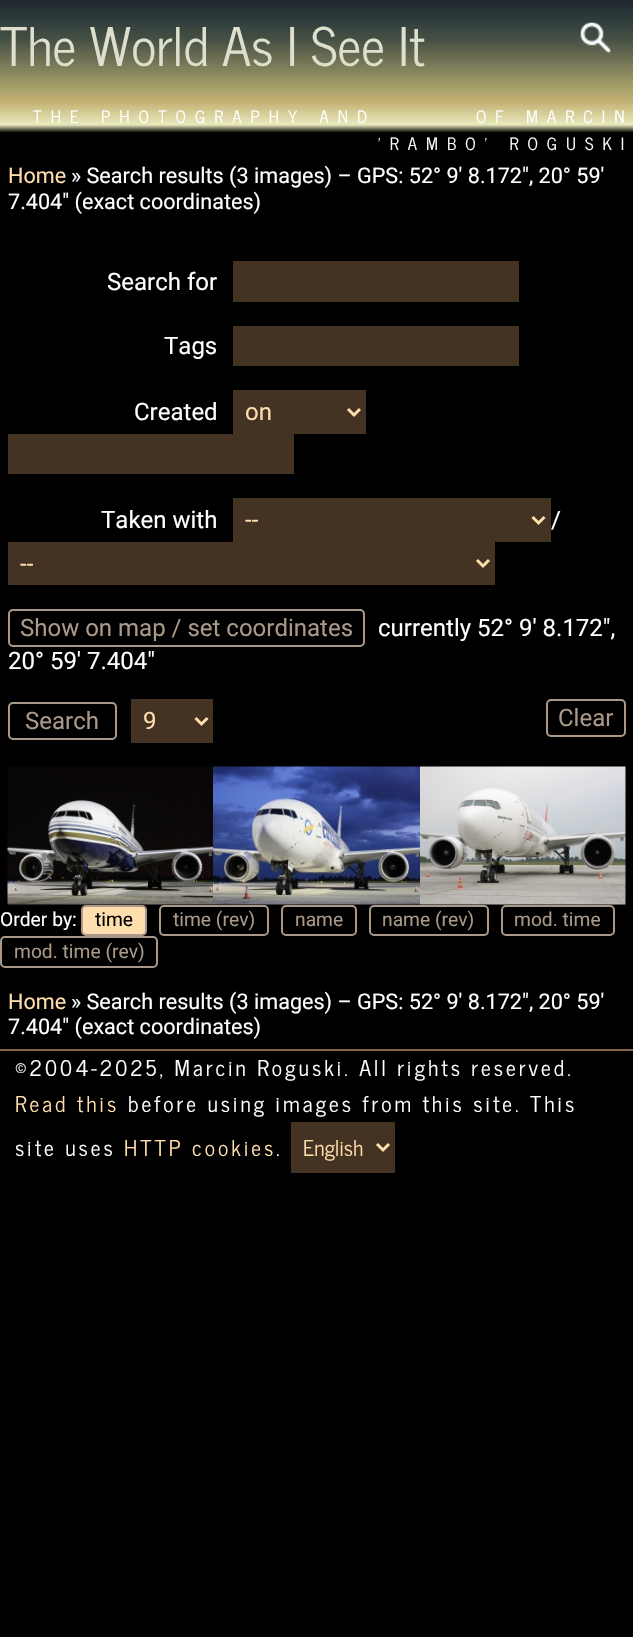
#include "include/core/SkBlurTypes.h"
#include "include/core/SkCanvas.h"
#include "include/core/SkData.h"
#include "include/core/SkFont.h"
#include "include/core/SkFontMgr.h"
#include "include/core/SkImage.h"
#include "include/core/SkMaskFilter.h"
#include "include/core/SkPaint.h"
#include "include/core/SkPathBuilder.h"
#include "include/core/SkTextBlob.h"
#include "include/effects/SkDashPathEffect.h"
#include "include/effects/SkGradientShader.h"
#include "include/utils/SkParsePath.h"

extern sk_sp<SkFontMgr> fontMgr;

void draw(SkCanvas* canvas) {
  SkPaint p;
  p.setAntiAlias(true);
  auto spacedText = [&](const char* s, float x, float y, const SkFont& font, const SkPaint& ink, float letter, float word) {
    std::vector<SkGlyphID> glyphs(font.countText(s, strlen(s), SkTextEncoding::kUTF8));
    std::vector<float> xs(glyphs.size());
    font.textToGlyphs(s, strlen(s), SkTextEncoding::kUTF8, glyphs);
    font.getXPos(glyphs, xs, x);
    float extra = 0;
    for (size_t i = 0; i < glyphs.size(); i++) {
      xs[i] += extra;
      extra += letter + word * (glyphs[i] == font.unicharToGlyph(' '));
    }
    canvas->drawTextBlob(SkTextBlob::MakeFromPosHGlyphs(glyphs, xs, y, font), 0, 0, ink);
  };
  canvas->clear(SK_ColorBLACK);
  {
    const SkColor colors[] = {SK_ColorBLACK, SkColorSetRGB(232, 233, 189), SkColorSetRGB(195, 177, 115), SkColorSetRGB(162, 156, 104), SkColorSetRGB(69, 79, 68), SkColorSetRGB(45, 59, 59), SkColorSetRGB(32, 41, 46)};
    const float stops[] = {0.15f, 0.2f, 0.35f, 0.45f, 0.75f, 0.88f, 1};
    const SkPoint ends[] = {{317, 156}, {317, 0}};
    p.setShader(SkGradientShader::MakeLinear(ends, colors, stops, 7, SkTileMode::kClamp));
    p.setAlpha(255);
  }
  canvas->drawRect(SkRect::MakeLTRB(0, 0, 633, 133), p);
  canvas->drawImageRect(SkImages::DeferredFromEncodedData(SkData::MakeFromFileName("images/1.png")), SkRect::MakeLTRB(580, 22, 611, 53), SkSamplingOptions());
  p.setShader(nullptr);
  p.setColor(SkColorSetRGB(68, 51, 34));
  canvas->drawRect(SkRect::MakeLTRB(233, 261, 519, 302), p);
  canvas->drawRect(SkRect::MakeLTRB(233, 326, 519, 366), p);
  canvas->drawRect(SkRect::MakeLTRB(233, 390, 366, 434), p);
  p.setStyle(SkPaint::kStroke_Style);
  p.setStrokeWidth(3);
  p.setColor(SkColorSetRGB(255, 222, 173));
  canvas->drawPath(SkPathBuilder().moveTo(348, 409).lineTo(354, 415).lineTo(360, 409).detach(), p);
  p.setStyle(SkPaint::kFill_Style);
  p.setColor(SkColorSetRGB(68, 51, 34));
  canvas->drawRect(SkRect::MakeLTRB(8, 434, 294, 474), p);
  canvas->drawRect(SkRect::MakeLTRB(233, 498, 551, 542), p);
  p.setStyle(SkPaint::kStroke_Style);
  p.setColor(SkColorSetRGB(255, 222, 173));
  canvas->drawPath(SkPathBuilder().moveTo(532.5f, 517).lineTo(538.5f, 523).lineTo(544.5f, 517).detach(), p);
  p.setStyle(SkPaint::kFill_Style);
  p.setColor(SkColorSetRGB(68, 51, 34));
  canvas->drawRect(SkRect::MakeLTRB(8, 542, 495, 585), p);
  p.setStyle(SkPaint::kStroke_Style);
  p.setColor(SkColorSetRGB(255, 222, 173));
  canvas->drawPath(SkPathBuilder().moveTo(477, 560).lineTo(483, 566).lineTo(489, 560).detach(), p);
  p.setStrokeWidth(2);
  p.setColor(SkColorSetRGB(170, 153, 136));
  canvas->drawRoundRect(SkRect::MakeLTRB(9, 610, 364, 646), 4, 4, p);
  canvas->drawRoundRect(SkRect::MakeLTRB(9, 703, 116, 739), 4, 4, p);
  p.setStyle(SkPaint::kFill_Style);
  p.setColor(SkColorSetRGB(68, 51, 34));
  canvas->drawRect(SkRect::MakeLTRB(131, 699, 213, 743), p);
  p.setStyle(SkPaint::kStroke_Style);
  p.setStrokeWidth(3);
  p.setColor(SkColorSetRGB(255, 222, 173));
  canvas->drawPath(SkPathBuilder().moveTo(195.5f, 718).lineTo(201.5f, 724).lineTo(207.5f, 718).detach(), p);
  p.setStrokeWidth(2);
  p.setColor(SkColorSetRGB(170, 153, 136));
  canvas->drawRoundRect(SkRect::MakeLTRB(547, 700, 625, 736), 4, 4, p);
  canvas->drawImageRect(SkImages::DeferredFromEncodedData(SkData::MakeFromFileName("images/2.png")), SkRect::MakeLTRB(7, 766, 213, 905), SkSamplingOptions());
  canvas->drawImageRect(SkImages::DeferredFromEncodedData(SkData::MakeFromFileName("images/3.png")), SkRect::MakeLTRB(213, 766, 420, 905), SkSamplingOptions());
  canvas->drawImageRect(SkImages::DeferredFromEncodedData(SkData::MakeFromFileName("images/4.png")), SkRect::MakeLTRB(420, 766, 626, 905), SkSamplingOptions());
  p.setStyle(SkPaint::kFill_Style);
  p.setColor(SkColorSetRGB(255, 222, 173));
  canvas->drawRoundRect(SkRect::MakeLTRB(82, 906, 146, 935), 4, 4, p);
  p.setStyle(SkPaint::kStroke_Style);
  p.setColor(SkColorSetRGB(170, 153, 136));
  canvas->drawRoundRect(SkRect::MakeLTRB(82, 906, 146, 935), 4, 4, p);
  canvas->drawRoundRect(SkRect::MakeLTRB(160, 906, 268, 935), 4, 4, p);
  canvas->drawRoundRect(SkRect::MakeLTRB(282, 906, 356, 935), 4, 4, p);
  canvas->drawRoundRect(SkRect::MakeLTRB(370, 906, 488, 935), 4, 4, p);
  canvas->drawRoundRect(SkRect::MakeLTRB(502, 906, 614, 935), 4, 4, p);
  canvas->drawRoundRect(SkRect::MakeLTRB(1, 937, 157, 967), 4, 4, p);
  p.setStyle(SkPaint::kFill_Style);
  p.setColor(SkColorSetRGB(136, 102, 68));
  canvas->drawRect(SkRect::MakeLTRB(0, 1049, 633, 1051), p);
  p.setColor(SkColorSetRGB(68, 51, 34));
  canvas->drawRect(SkRect::MakeLTRB(291, 1122, 395, 1173), p);
  p.setStyle(SkPaint::kStroke_Style);
  p.setStrokeWidth(3);
  p.setColor(SkColorSetRGB(255, 222, 173));
  canvas->drawPath(SkPathBuilder().moveTo(377, 1144).lineTo(383, 1150).lineTo(389, 1144).detach(), p);
  SkFont font1(fontMgr->matchFamilyStyle("News Cycle", SkFontStyle::Normal()), 52.75f);
  font1.setSubpixel(true);
  p.setStyle(SkPaint::kFill_Style);
  p.setColor(SkColorSetRGB(222, 223, 205));
  canvas->drawString("The World As I See It", 0, 66, font1, p);
  SkFont font2(fontMgr->matchFamilyStyle("News Cycle", SkFontStyle::Normal()), 16.8f);
  font2.setSubpixel(true);
  p.setColor(SK_ColorWHITE);
  spacedText("THE PHOTOGRAPHY AND", 33, 123, font2, p, 9, 0);
  spacedText("OF MARCIN", 476, 123, font2, p, 9, 0);
  spacedText("'RAMBO' ROGUSKI", 378, 150, font2, p, 9, 0);
  SkFont font3(fontMgr->matchFamilyStyle("Roboto", SkFontStyle::Normal()), 21.6f);
  font3.setSubpixel(true);
  p.setColor(SkColorSetRGB(255, 222, 173));
  canvas->drawString("Home", 8, 183, font3, p);
  p.setColor(SK_ColorWHITE);
  canvas->drawString("» Search results (3 images) – GPS: 52° 9' 8.172\", 20° 59'", 71, 183, font3, p);
  canvas->drawString("7.404\" (exact coordinates)", 8, 209, font3, p);
  SkFont font4(fontMgr->matchFamilyStyle("Roboto", SkFontStyle::Normal()), 24);
  font4.setSubpixel(true);
  canvas->drawString("Search for", 107, 290, font4, p);
  canvas->drawString("Tags", 164, 354, font4, p);
  canvas->drawString("Created", 134, 420, font4, p);
  p.setColor(SkColorSetRGB(255, 222, 173));
  canvas->drawString("on", 245, 420, font4, p);
  p.setColor(SK_ColorWHITE);
  canvas->drawString("Taken with", 101, 528, font4, p);
  p.setColor(SkColorSetRGB(255, 222, 173));
  canvas->drawString("--", 245, 528, font4, p);
  p.setColor(SK_ColorWHITE);
  canvas->drawString("/", 551, 528, font4, p);
  p.setColor(SkColorSetRGB(255, 222, 173));
  canvas->drawString("--", 20, 572, font4, p);
  p.setColor(SkColorSetRGB(170, 153, 136));
  canvas->drawString("Show on map / set coordinates", 20, 636, font4, p);
  p.setColor(SK_ColorWHITE);
  canvas->drawString("currently 52° 9' 8.172\",", 378, 636, font4, p);
  canvas->drawString("20° 59' 7.404\"", 8, 669, font4, p);
  p.setColor(SkColorSetRGB(170, 153, 136));
  canvas->drawString("Search", 25, 729, font4, p);
  p.setColor(SkColorSetRGB(255, 222, 173));
  canvas->drawString("9", 143, 729, font4, p);
  p.setColor(SkColorSetRGB(170, 153, 136));
  canvas->drawString("Clear", 558, 726, font4, p);
  SkFont font5(fontMgr->matchFamilyStyle("Roboto", SkFontStyle::Normal()), 19.25f);
  font5.setSubpixel(true);
  p.setColor(SK_ColorWHITE);
  canvas->drawString("Order by:", 0, 926, font5, p);
  p.setColor(SK_ColorBLACK);
  canvas->drawString("time", 95, 926, font5, p);
  p.setColor(SkColorSetRGB(170, 153, 136));
  canvas->drawString("time (rev)", 173, 926, font5, p);
  canvas->drawString("name", 295, 926, font5, p);
  canvas->drawString("name (rev)", 382, 926, font5, p);
  canvas->drawString("mod. time", 514, 926, font5, p);
  canvas->drawString("mod. time (rev)", 14, 958, font5, p);
  p.setColor(SkColorSetRGB(255, 222, 173));
  canvas->drawString("Home", 8, 1009, font3, p);
  p.setColor(SK_ColorWHITE);
  canvas->drawString("» Search results (3 images) – GPS: 52° 9' 8.172\", 20° 59'", 71, 1009, font3, p);
  canvas->drawString("7.404\" (exact coordinates)", 8, 1034, font3, p);
  SkFont font6(fontMgr->matchFamilyStyle("News Cycle", SkFontStyle::Normal()), 21.6f);
  font6.setSubpixel(true);
  spacedText("©2004-2025, Marcin Roguski. All rights reserved.", 15, 1076, font6, p, 3, 0);
  p.setColor(SkColorSetRGB(255, 222, 173));
  spacedText("Read this", 15, 1112, font6, p, 3, 0);
  p.setColor(SK_ColorWHITE);
  spacedText("before using images from this site. This", 128, 1112, font6, p, 3, 0);
  spacedText("site uses", 15, 1156, font6, p, 3, 0);
  p.setColor(SkColorSetRGB(255, 222, 173));
  spacedText("HTTP cookies", 124, 1156, font6, p, 3, 0);
  p.setColor(SK_ColorWHITE);
  spacedText(".", 276, 1156, font6, p, 3, 0);
  p.setColor(SkColorSetRGB(255, 222, 173));
  canvas->drawString("English", 303, 1156, font6, p);
}
